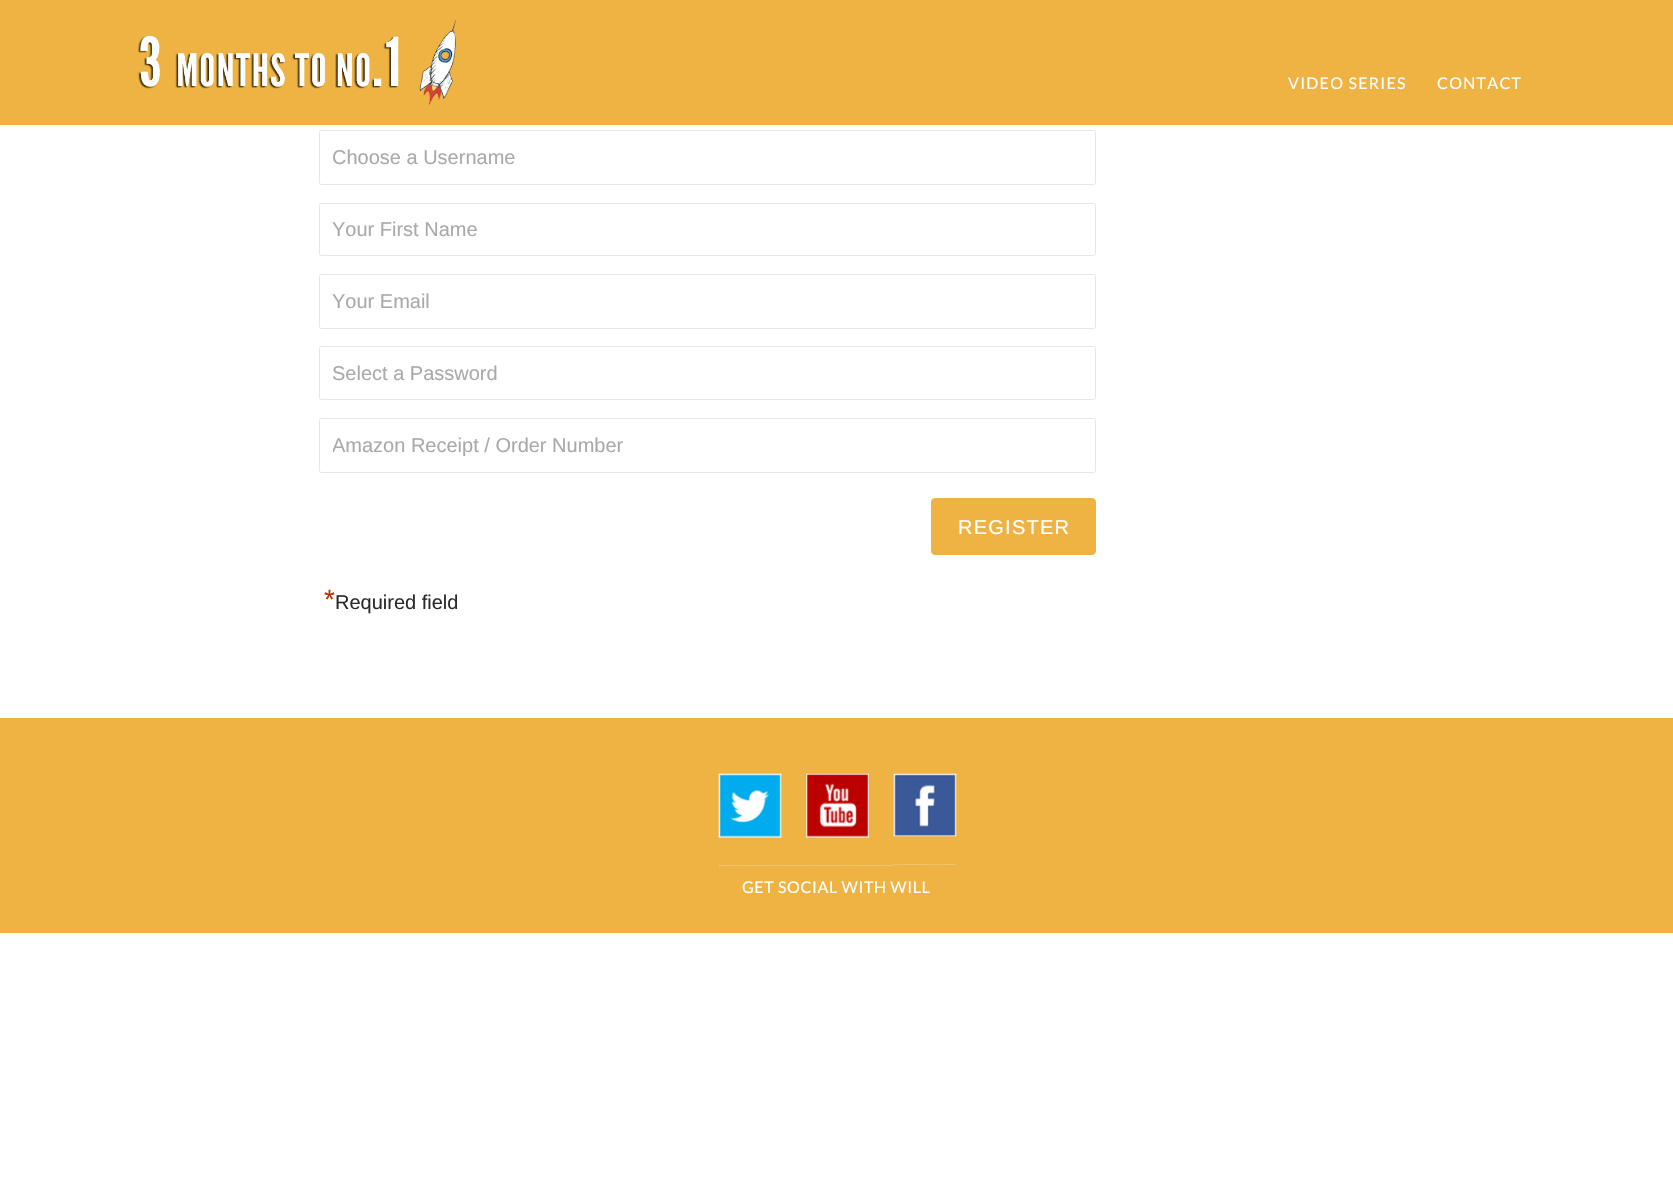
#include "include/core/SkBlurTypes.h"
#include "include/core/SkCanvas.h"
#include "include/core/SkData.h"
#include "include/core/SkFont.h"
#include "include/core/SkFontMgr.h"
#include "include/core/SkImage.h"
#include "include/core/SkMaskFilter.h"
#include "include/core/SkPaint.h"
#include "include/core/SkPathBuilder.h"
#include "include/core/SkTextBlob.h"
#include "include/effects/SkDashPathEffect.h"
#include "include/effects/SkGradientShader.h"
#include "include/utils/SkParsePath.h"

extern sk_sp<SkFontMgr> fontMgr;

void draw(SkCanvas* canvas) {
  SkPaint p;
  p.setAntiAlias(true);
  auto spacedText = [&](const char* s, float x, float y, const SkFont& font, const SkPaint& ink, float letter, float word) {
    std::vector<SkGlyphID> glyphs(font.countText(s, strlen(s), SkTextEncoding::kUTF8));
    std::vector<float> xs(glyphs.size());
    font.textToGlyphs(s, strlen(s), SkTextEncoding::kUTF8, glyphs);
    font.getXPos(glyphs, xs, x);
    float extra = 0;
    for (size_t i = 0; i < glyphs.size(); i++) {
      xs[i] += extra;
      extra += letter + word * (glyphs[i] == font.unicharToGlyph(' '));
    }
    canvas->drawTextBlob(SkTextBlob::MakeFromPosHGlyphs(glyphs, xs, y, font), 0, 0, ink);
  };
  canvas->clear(SK_ColorWHITE);
  p.setColor(SkColorSetRGB(239, 179, 67));
  canvas->drawRect(SkRect::MakeLTRB(0, 0, 1673, 125), p);
  canvas->drawImageRect(SkImages::DeferredFromEncodedData(SkData::MakeFromFileName("images/1.png")), SkRect::MakeLTRB(137, 19, 457, 105), SkSamplingOptions());
  p.setStyle(SkPaint::kStroke_Style);
  p.setStrokeWidth(1);
  p.setColor(SkColorSetRGB(230, 230, 230));
  canvas->drawRoundRect(SkRect::MakeLTRB(319.5f, 130.5f, 1095.5f, 184.5f), 2, 2, p);
  canvas->drawRoundRect(SkRect::MakeLTRB(319.5f, 203.5f, 1095.5f, 255.5f), 2, 2, p);
  canvas->drawRoundRect(SkRect::MakeLTRB(319.5f, 274.5f, 1095.5f, 328.5f), 2, 2, p);
  canvas->drawRoundRect(SkRect::MakeLTRB(319.5f, 346.5f, 1095.5f, 399.5f), 2, 2, p);
  canvas->drawRoundRect(SkRect::MakeLTRB(319.5f, 418.5f, 1095.5f, 472.5f), 2, 2, p);
  p.setStyle(SkPaint::kFill_Style);
  p.setColor(SkColorSetRGB(239, 179, 67));
  canvas->drawRoundRect(SkRect::MakeLTRB(931.5f, 498.5f, 1095.5f, 554.5f), 3.5f, 3.5f, p);
  p.setStyle(SkPaint::kStroke_Style);
  canvas->drawRoundRect(SkRect::MakeLTRB(931.5f, 498.5f, 1095.5f, 554.5f), 3.5f, 3.5f, p);
  p.setStyle(SkPaint::kFill_Style);
  canvas->drawRect(SkRect::MakeLTRB(0, 718, 1673, 933), p);
  p.setStyle(SkPaint::kStroke_Style);
  p.setStrokeWidth(1.2f);
  p.setColor(SkColorSetRGB(245, 209, 142));
  p.setPathEffect(SkDashPathEffect::Make({{1.25f, 1.25f}}, 0));
  canvas->drawPath(SkPathBuilder().moveTo(719, 865.5f).lineTo(806, 865.5f).detach(), p);
  p.setPathEffect(nullptr);
  canvas->drawImageRect(SkImages::DeferredFromEncodedData(SkData::MakeFromFileName("images/2.png")), SkRect::MakeLTRB(718, 773, 782, 838), SkSamplingOptions());
  p.setPathEffect(SkDashPathEffect::Make({{1.25f, 1.25f}}, 0));
  canvas->drawPath(SkPathBuilder().moveTo(806, 865.5f).lineTo(894, 865.5f).detach(), p);
  p.setPathEffect(nullptr);
  canvas->drawImageRect(SkImages::DeferredFromEncodedData(SkData::MakeFromFileName("images/3.png")), SkRect::MakeLTRB(806, 773, 869, 838), SkSamplingOptions());
  p.setPathEffect(SkDashPathEffect::Make({{1.25f, 1.25f}}, 0));
  canvas->drawPath(SkPathBuilder().moveTo(894, 864.5f).lineTo(956, 864.5f).detach(), p);
  p.setPathEffect(nullptr);
  canvas->drawImageRect(SkImages::DeferredFromEncodedData(SkData::MakeFromFileName("images/4.png")), SkRect::MakeLTRB(893, 773, 957, 837), SkSamplingOptions());
  SkFont font1(fontMgr->matchFamilyStyle("Lato", SkFontStyle::Normal()), 16);
  font1.setSubpixel(true);
  p.setStyle(SkPaint::kFill_Style);
  p.setColor(SK_ColorWHITE);
  spacedText("VIDEO SERIES", 1288, 89, font1, p, 1.25f, 0);
  spacedText("CONTACT", 1437, 89, font1, p, 1.25f, 0);
  SkFont font2(fontMgr->matchFamilyStyle("Liberation Sans", SkFontStyle::Normal()), 20);
  font2.setSubpixel(true);
  p.setColor(SkColorSetRGB(170, 170, 170));
  canvas->drawString("Choose a Username", 332, 164, font2, p);
  canvas->drawString("Your First Name", 332, 236, font2, p);
  canvas->drawString("Your Email", 332, 308, font2, p);
  canvas->drawString("Select a Password", 332, 380, font2, p);
  canvas->save();
  canvas->clipRect(SkRect::MakeLTRB(333, 434, 1083, 456));
  canvas->drawString("Amazon Receipt / Order Number", 332, 452, font2, p);
  canvas->restore();
  p.setColor(SK_ColorWHITE);
  spacedText("REGISTER", 958, 534, font2, p, 1.25f, 0);
  SkFont font3(fontMgr->matchFamilyStyle("Liberation Sans", SkFontStyle::Normal()), 28);
  font3.setSubpixel(true);
  p.setColor(SkColorSetRGB(189, 53, 0));
  canvas->drawString("*", 324, 609, font3, p);
  p.setColor(SkColorSetRGB(43, 43, 43));
  canvas->drawString("Required field", 335, 609, font2, p);
  p.setColor(SK_ColorWHITE);
  spacedText("GET SOCIAL WITH WILL", 742, 893, font1, p, 0.6f, 0);
}
